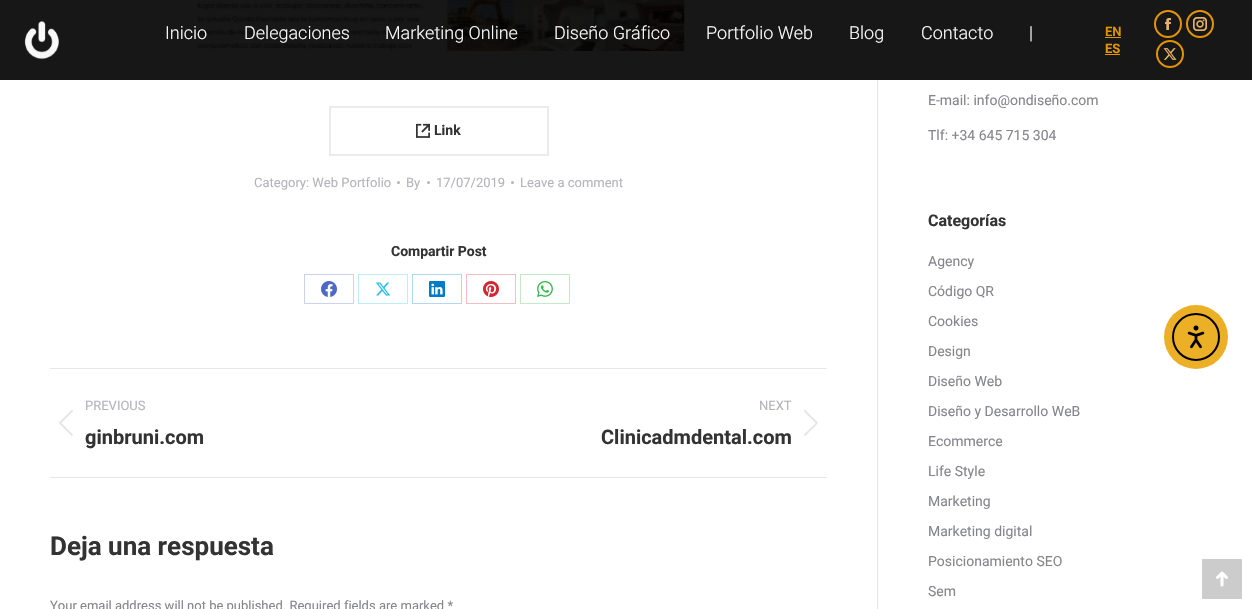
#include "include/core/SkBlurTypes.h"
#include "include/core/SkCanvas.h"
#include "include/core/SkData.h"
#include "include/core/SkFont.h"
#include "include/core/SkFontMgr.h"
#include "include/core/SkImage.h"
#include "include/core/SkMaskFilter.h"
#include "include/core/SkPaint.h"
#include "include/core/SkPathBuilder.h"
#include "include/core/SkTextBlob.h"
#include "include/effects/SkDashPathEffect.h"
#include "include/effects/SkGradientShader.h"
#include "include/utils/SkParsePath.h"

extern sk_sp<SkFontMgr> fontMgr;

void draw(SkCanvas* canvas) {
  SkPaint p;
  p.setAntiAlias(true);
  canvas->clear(SK_ColorWHITE);
  p.setColor(SkColorSetRGB(23, 23, 23));
  canvas->drawRect(SkRect::MakeLTRB(0, 0, 1252, 80), p);
  canvas->drawImageRect(SkImages::DeferredFromEncodedData(SkData::MakeFromFileName("images/1.png")), SkRect::MakeLTRB(24, 21, 59, 60), SkSamplingOptions());
  p.setColor(SkColorSetRGB(229, 148, 0));
  canvas->drawRect(SkRect::MakeLTRB(1105, 37, 1121, 38), p);
  canvas->drawRect(SkRect::MakeLTRB(1105, 54, 1120, 55), p);
  p.setStyle(SkPaint::kStroke_Style);
  p.setStrokeWidth(2);
  p.setColor(SkColorSetRGB(228, 148, 0));
  canvas->drawCircle(1168, 24, 13, p);
  canvas->drawImageRect(SkImages::DeferredFromEncodedData(SkData::MakeFromFileName("images/2.png")), SkRect::MakeLTRB(1165, 18, 1171, 30), SkSamplingOptions());
  canvas->drawCircle(1200, 24, 13, p);
  canvas->drawImageRect(SkImages::DeferredFromEncodedData(SkData::MakeFromFileName("images/3.png")), SkRect::MakeLTRB(1193, 17, 1207, 31), SkSamplingOptions());
  canvas->drawCircle(1170, 54, 13, p);
  canvas->drawImageRect(SkImages::DeferredFromEncodedData(SkData::MakeFromFileName("images/4.png")), SkRect::MakeLTRB(1163, 48, 1177, 60), SkSamplingOptions());
  canvas->drawImageRect(SkImages::DeferredFromEncodedData(SkData::MakeFromFileName("images/5.png")), SkRect::MakeLTRB(192, 0, 686, 51), SkSamplingOptions());
  p.setColor(SkColorSetRGB(235, 235, 235));
  canvas->drawRect(SkRect::MakeLTRB(330, 107, 548, 155), p);
  canvas->drawImageRect(SkImages::DeferredFromEncodedData(SkData::MakeFromFileName("images/6.png")), SkRect::MakeLTRB(416, 123, 430, 138), SkSamplingOptions());
  p.setStyle(SkPaint::kFill_Style);
  p.setColor(SkColorSetRGB(180, 181, 187));
  canvas->drawCircle(398.5f, 182.5f, 1.5f, p);
  canvas->drawCircle(428.5f, 182.5f, 1.5f, p);
  canvas->drawCircle(512.5f, 182.5f, 1.5f, p);
  p.setStyle(SkPaint::kStroke_Style);
  p.setStrokeWidth(1);
  p.setColor(SkColorSetRGB(201, 210, 238));
  canvas->drawRect(SkRect::MakeLTRB(304.5f, 274.5f, 353.5f, 303.5f), p);
  canvas->drawImageRect(SkImages::DeferredFromEncodedData(SkData::MakeFromFileName("images/7.png")), SkRect::MakeLTRB(321, 281, 337, 297), SkSamplingOptions());
  p.setColor(SkColorSetRGB(191, 236, 249));
  canvas->drawRect(SkRect::MakeLTRB(358.5f, 274.5f, 407.5f, 303.5f), p);
  canvas->drawImageRect(SkImages::DeferredFromEncodedData(SkData::MakeFromFileName("images/8.png")), SkRect::MakeLTRB(376, 282, 391, 296), SkSamplingOptions());
  p.setColor(SkColorSetRGB(179, 215, 238));
  canvas->drawRect(SkRect::MakeLTRB(412.5f, 274.5f, 461.5f, 303.5f), p);
  canvas->drawImageRect(SkImages::DeferredFromEncodedData(SkData::MakeFromFileName("images/9.png")), SkRect::MakeLTRB(429, 281, 445, 297), SkSamplingOptions());
  p.setColor(SkColorSetRGB(241, 191, 194));
  canvas->drawRect(SkRect::MakeLTRB(466.5f, 274.5f, 515.5f, 303.5f), p);
  canvas->drawImageRect(SkImages::DeferredFromEncodedData(SkData::MakeFromFileName("images/10.png")), SkRect::MakeLTRB(483, 281, 499, 297), SkSamplingOptions());
  p.setColor(SkColorSetRGB(195, 233, 202));
  canvas->drawRect(SkRect::MakeLTRB(520.5f, 274.5f, 569.5f, 303.5f), p);
  canvas->drawImageRect(SkImages::DeferredFromEncodedData(SkData::MakeFromFileName("images/11.png")), SkRect::MakeLTRB(537, 281, 553, 297), SkSamplingOptions());
  p.setStyle(SkPaint::kFill_Style);
  p.setColor(SkColorSetRGB(231, 231, 231));
  canvas->drawRect(SkRect::MakeLTRB(50, 368, 827, 369), p);
  canvas->drawRect(SkRect::MakeLTRB(50, 477, 827, 478), p);
  canvas->drawImageRect(SkImages::DeferredFromEncodedData(SkData::MakeFromFileName("images/12.png")), SkRect::MakeLTRB(59, 410, 73, 436), SkSamplingOptions());
  canvas->drawImageRect(SkImages::DeferredFromEncodedData(SkData::MakeFromFileName("images/13.png")), SkRect::MakeLTRB(804, 410, 818, 436), SkSamplingOptions());
  canvas->drawRect(SkRect::MakeLTRB(877, 80, 878, 609), p);
  p.setColor(SkColorSetRGB(204, 204, 204));
  canvas->drawRoundRect(SkRect::MakeLTRB(1202, 559, 1242, 599), 1, 1, p);
  canvas->drawImageRect(SkImages::DeferredFromEncodedData(SkData::MakeFromFileName("images/14.png")), SkRect::MakeLTRB(1216, 571, 1228, 587), SkSamplingOptions());
  p.setColor(SkColorSetRGB(235, 176, 38));
  canvas->drawCircle(1196, 337, 32, p);
  p.setStyle(SkPaint::kStroke_Style);
  p.setStrokeWidth(2);
  p.setColor(SK_ColorBLACK);
  canvas->drawCircle(1196, 337, 23, p);
  canvas->drawImageRect(SkImages::DeferredFromEncodedData(SkData::MakeFromFileName("images/15.png")), SkRect::MakeLTRB(1187, 325, 1205, 349), SkSamplingOptions());
  SkFont font1(fontMgr->matchFamilyStyle("Roboto", SkFontStyle(300, SkFontStyle::kNormal_Width, SkFontStyle::kUpright_Slant)), 18);
  font1.setSubpixel(true);
  p.setStyle(SkPaint::kFill_Style);
  p.setColor(SK_ColorWHITE);
  canvas->drawString("Inicio", 165, 39, font1, p);
  canvas->drawString("Delegaciones", 244, 39, font1, p);
  canvas->drawString("Marketing Online", 385, 39, font1, p);
  canvas->drawString("Diseño Gráfico", 554, 39, font1, p);
  canvas->drawString("Portfolio Web", 706, 39, font1, p);
  canvas->drawString("Blog", 849, 39, font1, p);
  canvas->drawString("Contacto", 921, 39, font1, p);
  canvas->drawString("|", 1029, 39, font1, p);
  SkFont font2(fontMgr->matchFamilyStyle("Roboto", SkFontStyle(600, SkFontStyle::kNormal_Width, SkFontStyle::kUpright_Slant)), 13);
  font2.setSubpixel(true);
  p.setColor(SkColorSetRGB(229, 148, 0));
  canvas->drawString("EN", 1105, 36, font2, p);
  SkFont font3(fontMgr->matchFamilyStyle("Roboto", SkFontStyle::Bold()), 13);
  font3.setSubpixel(true);
  canvas->drawString("ES", 1105, 53, font3, p);
  SkFont font4(fontMgr->matchFamilyStyle("Roboto", SkFontStyle::Bold()), 14);
  font4.setSubpixel(true);
  p.setColor(SkColorSetRGB(51, 51, 51));
  canvas->drawString("Link", 434, 135, font4, p);
  SkFont font5(fontMgr->matchFamilyStyle("Roboto", SkFontStyle::Normal()), 13);
  font5.setSubpixel(true);
  p.setColor(SkColorSetRGB(180, 181, 187));
  canvas->drawString("Category: Web Portfolio", 254, 187, font5, p);
  canvas->drawString("By", 406, 187, font5, p);
  canvas->drawString("17/07/2019", 436, 187, font5, p);
  canvas->drawString("Leave a comment", 520, 187, font5, p);
  p.setColor(SkColorSetRGB(51, 51, 51));
  canvas->drawString("Compartir Post", 391, 256, font4, p);
  p.setColor(SkColorSetRGB(180, 181, 187));
  canvas->drawString("PREVIOUS", 85, 410, font5, p);
  SkFont font6(fontMgr->matchFamilyStyle("Roboto", SkFontStyle::Bold()), 20);
  font6.setSubpixel(true);
  p.setColor(SkColorSetRGB(51, 51, 51));
  canvas->drawString("ginbruni.com", 85, 444, font6, p);
  p.setColor(SkColorSetRGB(180, 181, 187));
  canvas->drawString("NEXT", 759, 410, font5, p);
  p.setColor(SkColorSetRGB(51, 51, 51));
  canvas->drawString("Clinicadmdental.com", 601, 444, font6, p);
  SkFont font7(fontMgr->matchFamilyStyle("Roboto", SkFontStyle::Bold()), 26);
  font7.setSubpixel(true);
  canvas->drawString("Deja una respuesta", 50, 555, font7, p);
  p.setColor(SkColorSetRGB(133, 134, 140));
  canvas->drawString("Your email address will not be published. Required fields are marked *", 50, 610, font5, p);
  SkFont font8(fontMgr->matchFamilyStyle("Roboto", SkFontStyle::Normal()), 14);
  font8.setSubpixel(true);
  canvas->drawString("E-mail: info@ondiseño.com", 928, 105, font8, p);
  canvas->drawString("Tlf: +34 645 715 304", 928, 140, font8, p);
  SkFont font9(fontMgr->matchFamilyStyle("Roboto", SkFontStyle::Bold()), 16);
  font9.setSubpixel(true);
  p.setColor(SkColorSetRGB(51, 51, 51));
  canvas->drawString("Categorías", 928, 226, font9, p);
  p.setColor(SkColorSetRGB(133, 134, 140));
  canvas->drawString("Agency", 928, 266, font8, p);
  canvas->drawString("Código QR", 928, 296, font8, p);
  canvas->drawString("Cookies", 928, 326, font8, p);
  canvas->drawString("Design", 928, 356, font8, p);
  canvas->drawString("Diseño Web", 928, 386, font8, p);
  canvas->drawString("Diseño y Desarrollo WeB", 928, 416, font8, p);
  canvas->drawString("Ecommerce", 928, 446, font8, p);
  canvas->drawString("Life Style", 928, 476, font8, p);
  canvas->drawString("Marketing", 928, 506, font8, p);
  canvas->drawString("Marketing digital", 928, 536, font8, p);
  canvas->drawString("Posicionamiento SEO", 928, 566, font8, p);
  canvas->drawString("Sem", 928, 596, font8, p);
}
